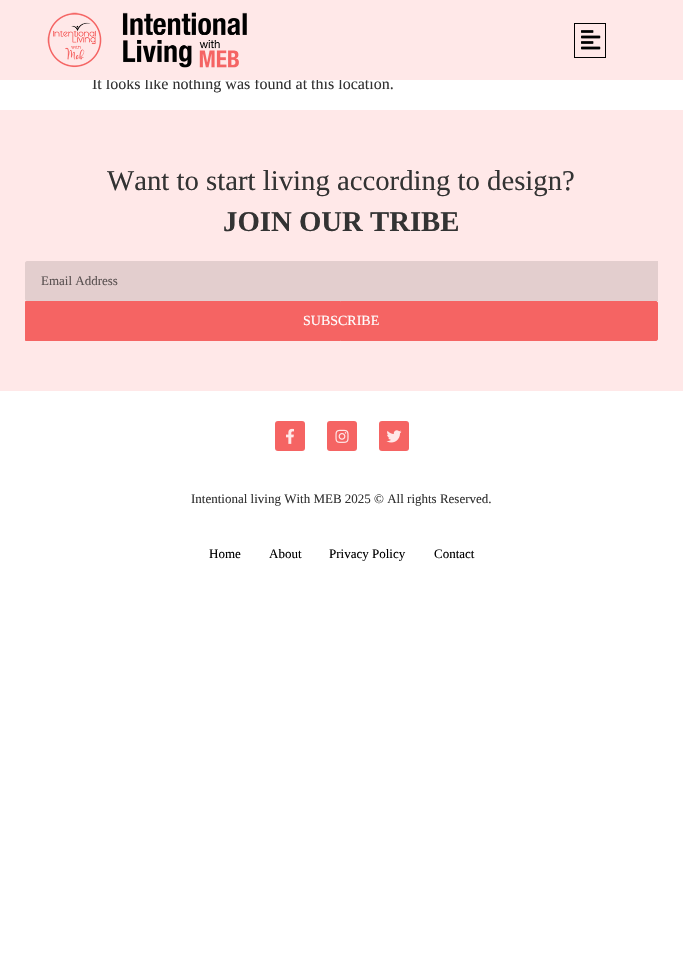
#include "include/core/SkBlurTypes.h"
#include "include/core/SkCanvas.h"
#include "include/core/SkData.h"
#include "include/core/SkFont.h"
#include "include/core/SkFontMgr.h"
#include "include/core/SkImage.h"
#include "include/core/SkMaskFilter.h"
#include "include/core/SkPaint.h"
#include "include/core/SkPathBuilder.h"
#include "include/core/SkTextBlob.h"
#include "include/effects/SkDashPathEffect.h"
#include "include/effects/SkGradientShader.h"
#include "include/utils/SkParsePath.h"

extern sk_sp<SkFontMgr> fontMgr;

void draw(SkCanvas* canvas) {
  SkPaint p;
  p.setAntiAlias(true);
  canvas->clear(SK_ColorWHITE);
  p.setColor(SkColorSetRGB(255, 232, 232));
  canvas->drawRect(SkRect::MakeLTRB(0, 110, 683, 391), p);
  p.setColor(SkColorSetRGB(227, 206, 206));
  canvas->drawPath(SkPathBuilder().moveTo(27, 261).lineTo(658, 261).lineTo(658, 301).lineTo(27, 301).cubicTo(26, 301, 25, 300, 25, 299).lineTo(25, 263).cubicTo(25, 262, 26, 261, 27, 261).close().detach(), p);
  p.setColor(SkColorSetRGB(245, 100, 99));
  canvas->drawPath(SkPathBuilder().moveTo(25.5f, 301.5f).lineTo(656, 301.5f).cubicTo(657, 301.5f, 657.5f, 302, 657.5f, 303).lineTo(657.5f, 339).cubicTo(657.5f, 340, 657, 340.5f, 656, 340.5f).lineTo(25.5f, 340.5f).close().detach(), p);
  p.setStyle(SkPaint::kStroke_Style);
  p.setStrokeWidth(1);
  canvas->drawPath(SkPathBuilder().moveTo(25.5f, 301.5f).lineTo(656, 301.5f).cubicTo(657, 301.5f, 657.5f, 302, 657.5f, 303).lineTo(657.5f, 339).cubicTo(657.5f, 340, 657, 340.5f, 656, 340.5f).lineTo(25.5f, 340.5f).close().detach(), p);
  p.setStyle(SkPaint::kFill_Style);
  canvas->drawRoundRect(SkRect::MakeLTRB(275, 421, 305, 451), 3, 3, p);
  canvas->drawImageRect(SkImages::DeferredFromEncodedData(SkData::MakeFromFileName("images/3.png")), SkRect::MakeLTRB(286, 428, 294, 444), SkSamplingOptions());
  canvas->drawRoundRect(SkRect::MakeLTRB(327, 421, 357, 451), 3, 3, p);
  canvas->drawImageRect(SkImages::DeferredFromEncodedData(SkData::MakeFromFileName("images/4.png")), SkRect::MakeLTRB(335, 429, 349, 443), SkSamplingOptions());
  canvas->drawRoundRect(SkRect::MakeLTRB(379, 421, 409, 451), 3, 3, p);
  canvas->drawImageRect(SkImages::DeferredFromEncodedData(SkData::MakeFromFileName("images/5.png")), SkRect::MakeLTRB(386, 430, 402, 443), SkSamplingOptions());
  SkFont font1(fontMgr->matchFamilyStyle("Liberation Serif", SkFontStyle::Normal()), 16);
  font1.setSubpixel(true);
  p.setColor(SkColorSetRGB(51, 51, 51));
  canvas->drawString("It looks like nothing was found at this location.", 92, 89, font1, p);
  p.setColor(SkColorSetRGB(255, 232, 232));
  canvas->drawRect(SkRect::MakeLTRB(0, 0, 683, 80), p);
  p.setStyle(SkPaint::kStroke_Style);
  p.setColor(SK_ColorBLACK);
  canvas->drawRect(SkRect::MakeLTRB(574.5f, 23.5f, 605.5f, 57.5f), p);
  canvas->drawImageRect(SkImages::DeferredFromEncodedData(SkData::MakeFromFileName("images/2.png")), SkRect::MakeLTRB(581, 30, 601, 50), SkSamplingOptions());
  canvas->drawImageRect(SkImages::DeferredFromEncodedData(SkData::MakeFromFileName("images/1.png")), SkRect::MakeLTRB(47, 12, 247, 68), SkSamplingOptions());
  SkFont font2(fontMgr->matchFamilyStyle("Liberation Serif", SkFontStyle::Normal()), 28.75f);
  font2.setSubpixel(true);
  p.setStyle(SkPaint::kFill_Style);
  p.setColor(SkColorSetRGB(51, 51, 51));
  canvas->drawString("Want to start living according to design?", 107, 190, font2, p);
  SkFont font3(fontMgr->matchFamilyStyle("Liberation Serif", SkFontStyle::Bold()), 28.75f);
  font3.setSubpixel(true);
  canvas->drawString("JOIN OUR TRIBE", 223, 231, font3, p);
  SkFont font4(fontMgr->matchFamilyStyle("Liberation Serif", SkFontStyle::Normal()), 13);
  font4.setSubpixel(true);
  p.setColor(SkColorSetRGB(91, 82, 82));
  canvas->drawString("Email Address", 41, 285, font4, p);
  SkFont font5(fontMgr->matchFamilyStyle("Liberation Serif", SkFontStyle::Normal()), 14);
  font5.setSubpixel(true);
  p.setColor(SK_ColorWHITE);
  canvas->drawString("SUBSCRIBE", 303, 325, font5, p);
  p.setColor(SkColorSetRGB(51, 51, 51));
  canvas->drawString("Intentional living With MEB 2025 © All rights Reserved.", 191, 503, font4, p);
  p.setColor(SK_ColorBLACK);
  canvas->drawString("Home", 209, 558, font4, p);
  canvas->drawString("About", 269, 558, font4, p);
  canvas->drawString("Privacy Policy", 329, 558, font4, p);
  canvas->drawString("Contact", 434, 558, font4, p);
}
